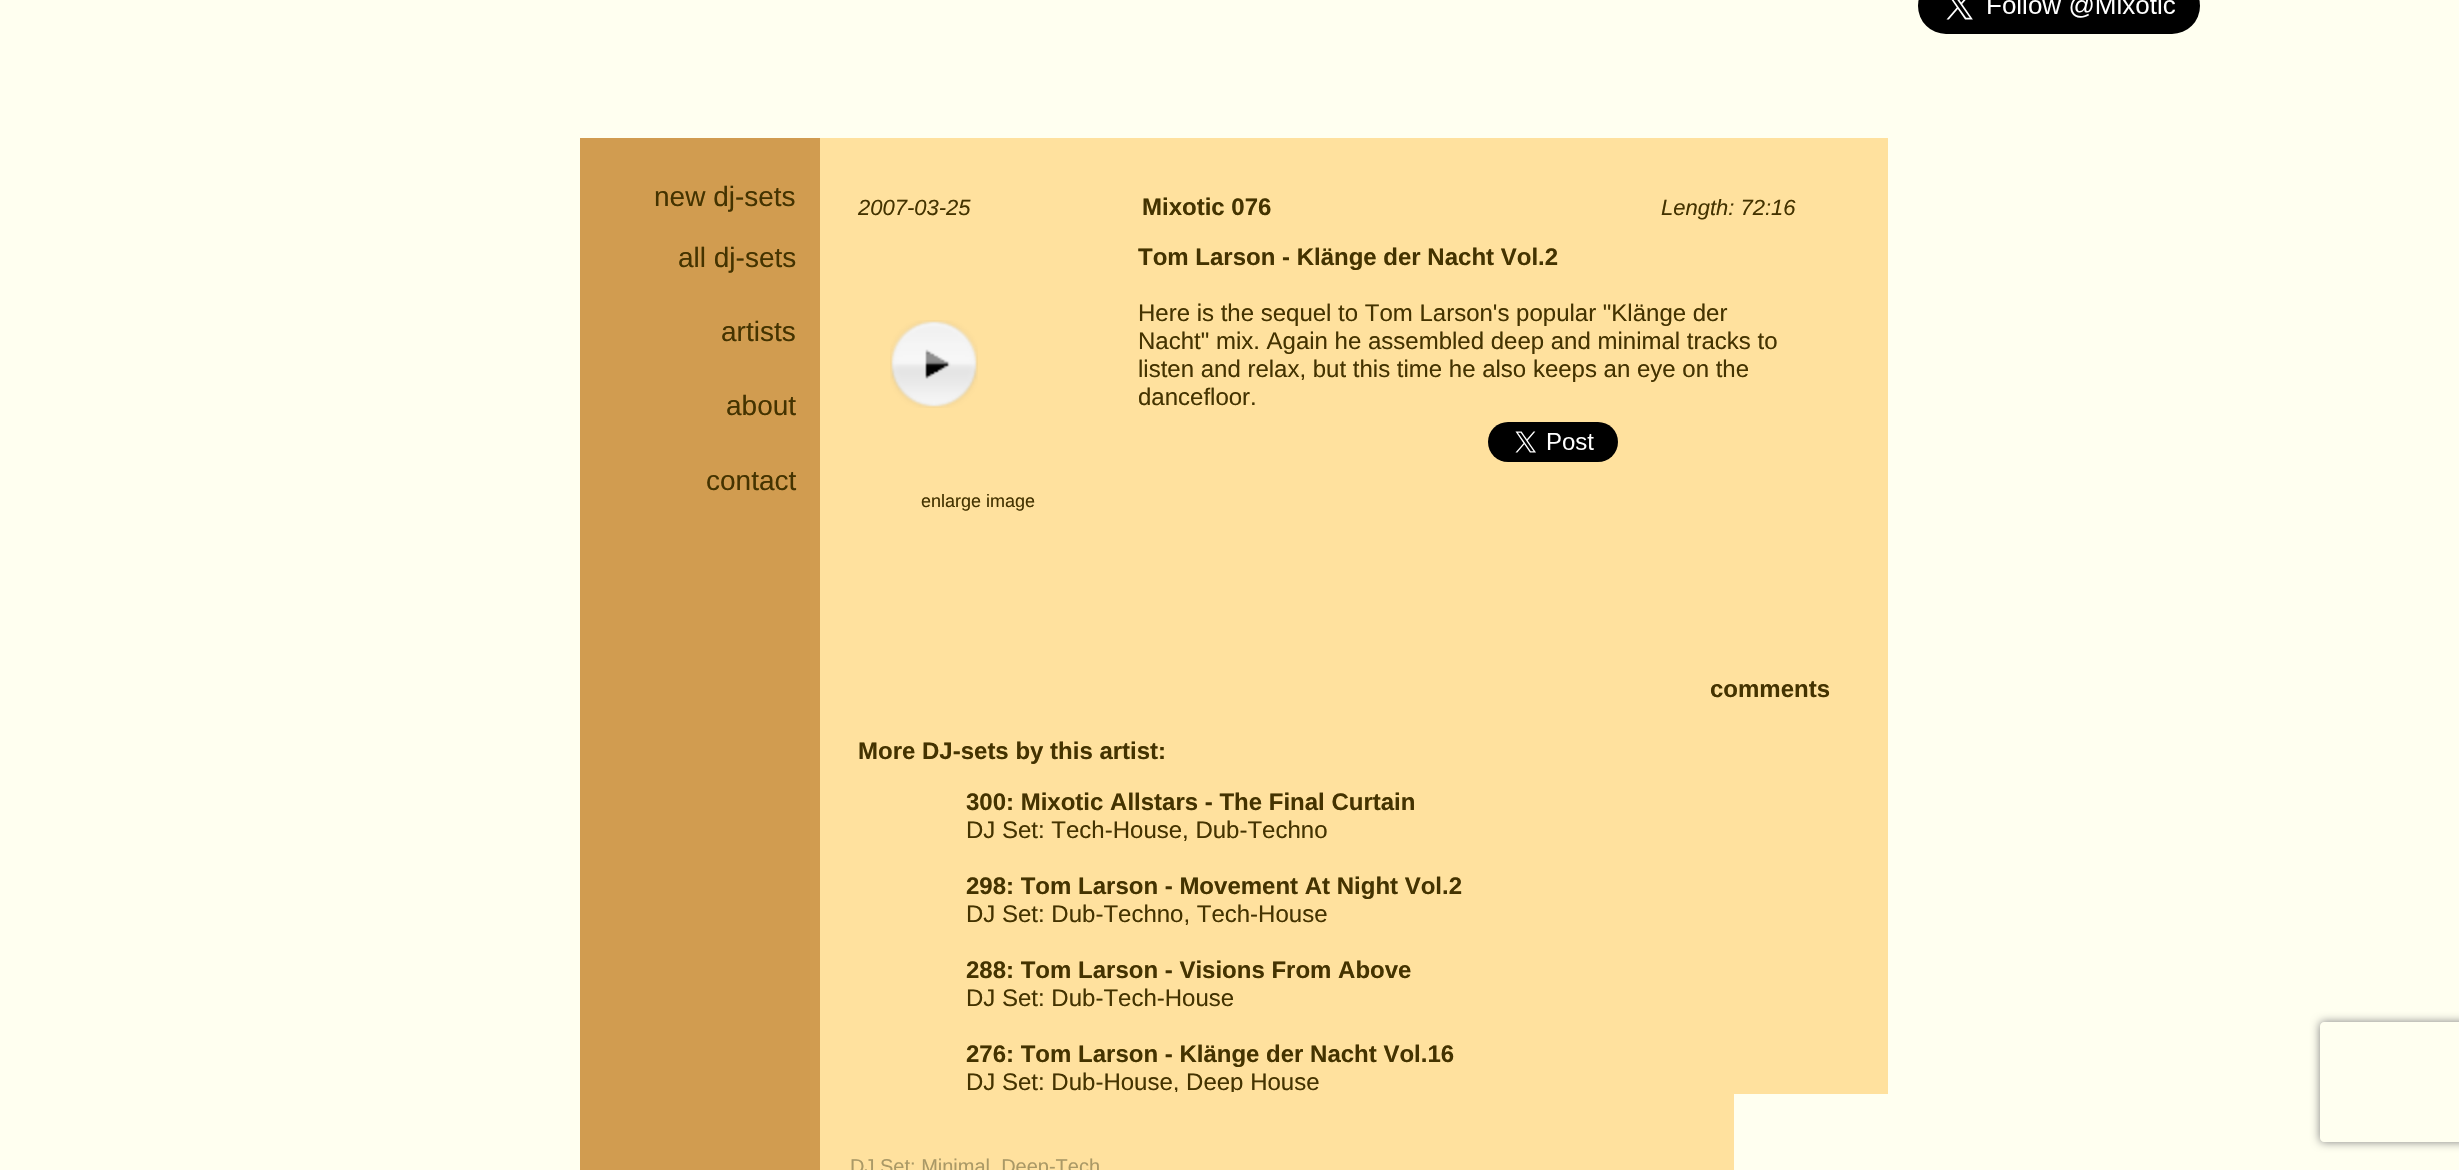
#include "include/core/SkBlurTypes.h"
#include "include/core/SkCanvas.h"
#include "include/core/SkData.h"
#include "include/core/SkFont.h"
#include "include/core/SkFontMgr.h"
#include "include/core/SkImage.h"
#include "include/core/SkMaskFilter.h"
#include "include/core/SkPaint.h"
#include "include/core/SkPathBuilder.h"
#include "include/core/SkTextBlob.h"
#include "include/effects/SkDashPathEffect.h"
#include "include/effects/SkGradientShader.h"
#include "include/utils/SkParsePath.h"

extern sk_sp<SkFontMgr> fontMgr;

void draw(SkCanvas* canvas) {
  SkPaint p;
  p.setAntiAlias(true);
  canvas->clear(SkColorSetRGB(255, 255, 240));
  canvas->drawImageRect(SkImages::DeferredFromEncodedData(SkData::MakeFromFileName("images/1.png")), SkRect::MakeLTRB(1918, 0, 2200, 34), SkSamplingOptions());
  p.setColor(SkColorSetRGB(209, 156, 80));
  canvas->drawRect(SkRect::MakeLTRB(580, 138, 820, 1170), p);
  p.setColor(SkColorSetRGB(255, 225, 158));
  canvas->drawRect(SkRect::MakeLTRB(820, 138, 1888, 1094), p);
  canvas->drawImageRect(SkImages::DeferredFromEncodedData(SkData::MakeFromFileName("images/2.png")), SkRect::MakeLTRB(1488, 422, 1618, 462), SkSamplingOptions());
  canvas->drawImageRect(SkImages::DeferredFromEncodedData(SkData::MakeFromFileName("images/3.png")), SkRect::MakeLTRB(890, 320, 978, 408), SkSamplingOptions());
  canvas->drawRect(SkRect::MakeLTRB(820, 1094, 1734, 1170), p);
  canvas->save();
  canvas->clipPath(SkPathBuilder(SkPathFillType::kEvenOdd).moveTo(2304, 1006).lineTo(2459, 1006).lineTo(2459, 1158).lineTo(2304, 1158).close().moveTo(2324, 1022).lineTo(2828, 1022).cubicTo(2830, 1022, 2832, 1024, 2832, 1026).lineTo(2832, 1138).cubicTo(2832, 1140, 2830, 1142, 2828, 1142).lineTo(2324, 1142).cubicTo(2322, 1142, 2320, 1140, 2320, 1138).lineTo(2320, 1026).cubicTo(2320, 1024, 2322, 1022, 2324, 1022).close().detach(), true);
  p.setColor(SkColorSetRGB(128, 128, 128));
  p.setMaskFilter(SkMaskFilter::MakeBlur(kNormal_SkBlurStyle, 5));
  canvas->drawRoundRect(SkRect::MakeLTRB(2320, 1022, 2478, 1142), 4, 4, p);
  p.setMaskFilter(nullptr);
  canvas->restore();
  SkFont font1(fontMgr->matchFamilyStyle("Liberation Sans", SkFontStyle::Normal()), 28);
  font1.setSubpixel(true);
  p.setColor(SkColorSetRGB(68, 51, 0));
  canvas->drawString("new dj-sets", 654, 206, font1, p);
  SkFont font2(fontMgr->matchFamilyStyle("Liberation Sans", SkFontStyle::Italic()), 22);
  font2.setSubpixel(true);
  canvas->drawString("2007-03-25", 858, 215, font2, p);
  SkFont font3(fontMgr->matchFamilyStyle("Liberation Sans", SkFontStyle::Bold()), 24);
  font3.setSubpixel(true);
  canvas->drawString("Mixotic 076", 1142, 215, font3, p);
  canvas->drawString("Length: 72:16", 1661, 215, font2, p);
  canvas->drawString("Tom Larson - Klänge der Nacht Vol.2", 1138, 265, font3, p);
  SkFont font4(fontMgr->matchFamilyStyle("Liberation Sans", SkFontStyle::Normal()), 24);
  font4.setSubpixel(true);
  canvas->drawString("Here is the sequel to Tom Larson's popular \"Klänge der", 1138, 321, font4, p);
  canvas->drawString("Nacht\" mix. Again he assembled deep and minimal tracks to", 1138, 349, font4, p);
  canvas->drawString("listen and relax, but this time he also keeps an eye on the", 1138, 377, font4, p);
  canvas->drawString("dancefloor.", 1138, 405, font4, p);
  SkFont font5(fontMgr->matchFamilyStyle("Liberation Sans", SkFontStyle::Normal()), 18);
  font5.setSubpixel(true);
  canvas->drawString("enlarge image", 921, 507, font5, p);
  canvas->drawString("comments", 1710, 697, font3, p);
  canvas->drawString("More DJ-sets by this artist:", 858, 759, font3, p);
  canvas->drawString("300: Mixotic Allstars - The Final Curtain", 966, 810, font3, p);
  canvas->drawString("DJ Set: Tech-House, Dub-Techno", 966, 838, font4, p);
  canvas->drawString("298: Tom Larson - Movement At Night Vol.2", 966, 894, font3, p);
  canvas->drawString("DJ Set: Dub-Techno, Tech-House", 966, 922, font4, p);
  canvas->drawString("288: Tom Larson - Visions From Above", 966, 978, font3, p);
  canvas->drawString("DJ Set: Dub-Tech-House", 966, 1006, font4, p);
  canvas->drawString("276: Tom Larson - Klänge der Nacht Vol.16", 966, 1062, font3, p);
  canvas->save();
  canvas->clipRect(SkRect::MakeLTRB(820, 138, 1888, 1092));
  canvas->drawString("DJ Set: Dub-House, Deep House", 966, 1090, font4, p);
  canvas->restore();
  canvas->drawString("all dj-sets", 678, 267, font1, p);
  canvas->drawString("artists", 721, 341, font1, p);
  canvas->drawString("about", 726, 415, font1, p);
  canvas->drawString("contact", 706, 490, font1, p);
  SkFont font6(fontMgr->matchFamilyStyle("Liberation Sans", SkFontStyle::Normal()), 20);
  font6.setSubpixel(true);
  p.setColor(SkColorSetRGB(170, 153, 102));
  canvas->drawString("DJ Set: Minimal, Deep-Tech", 850, 1173, font6, p);
}
